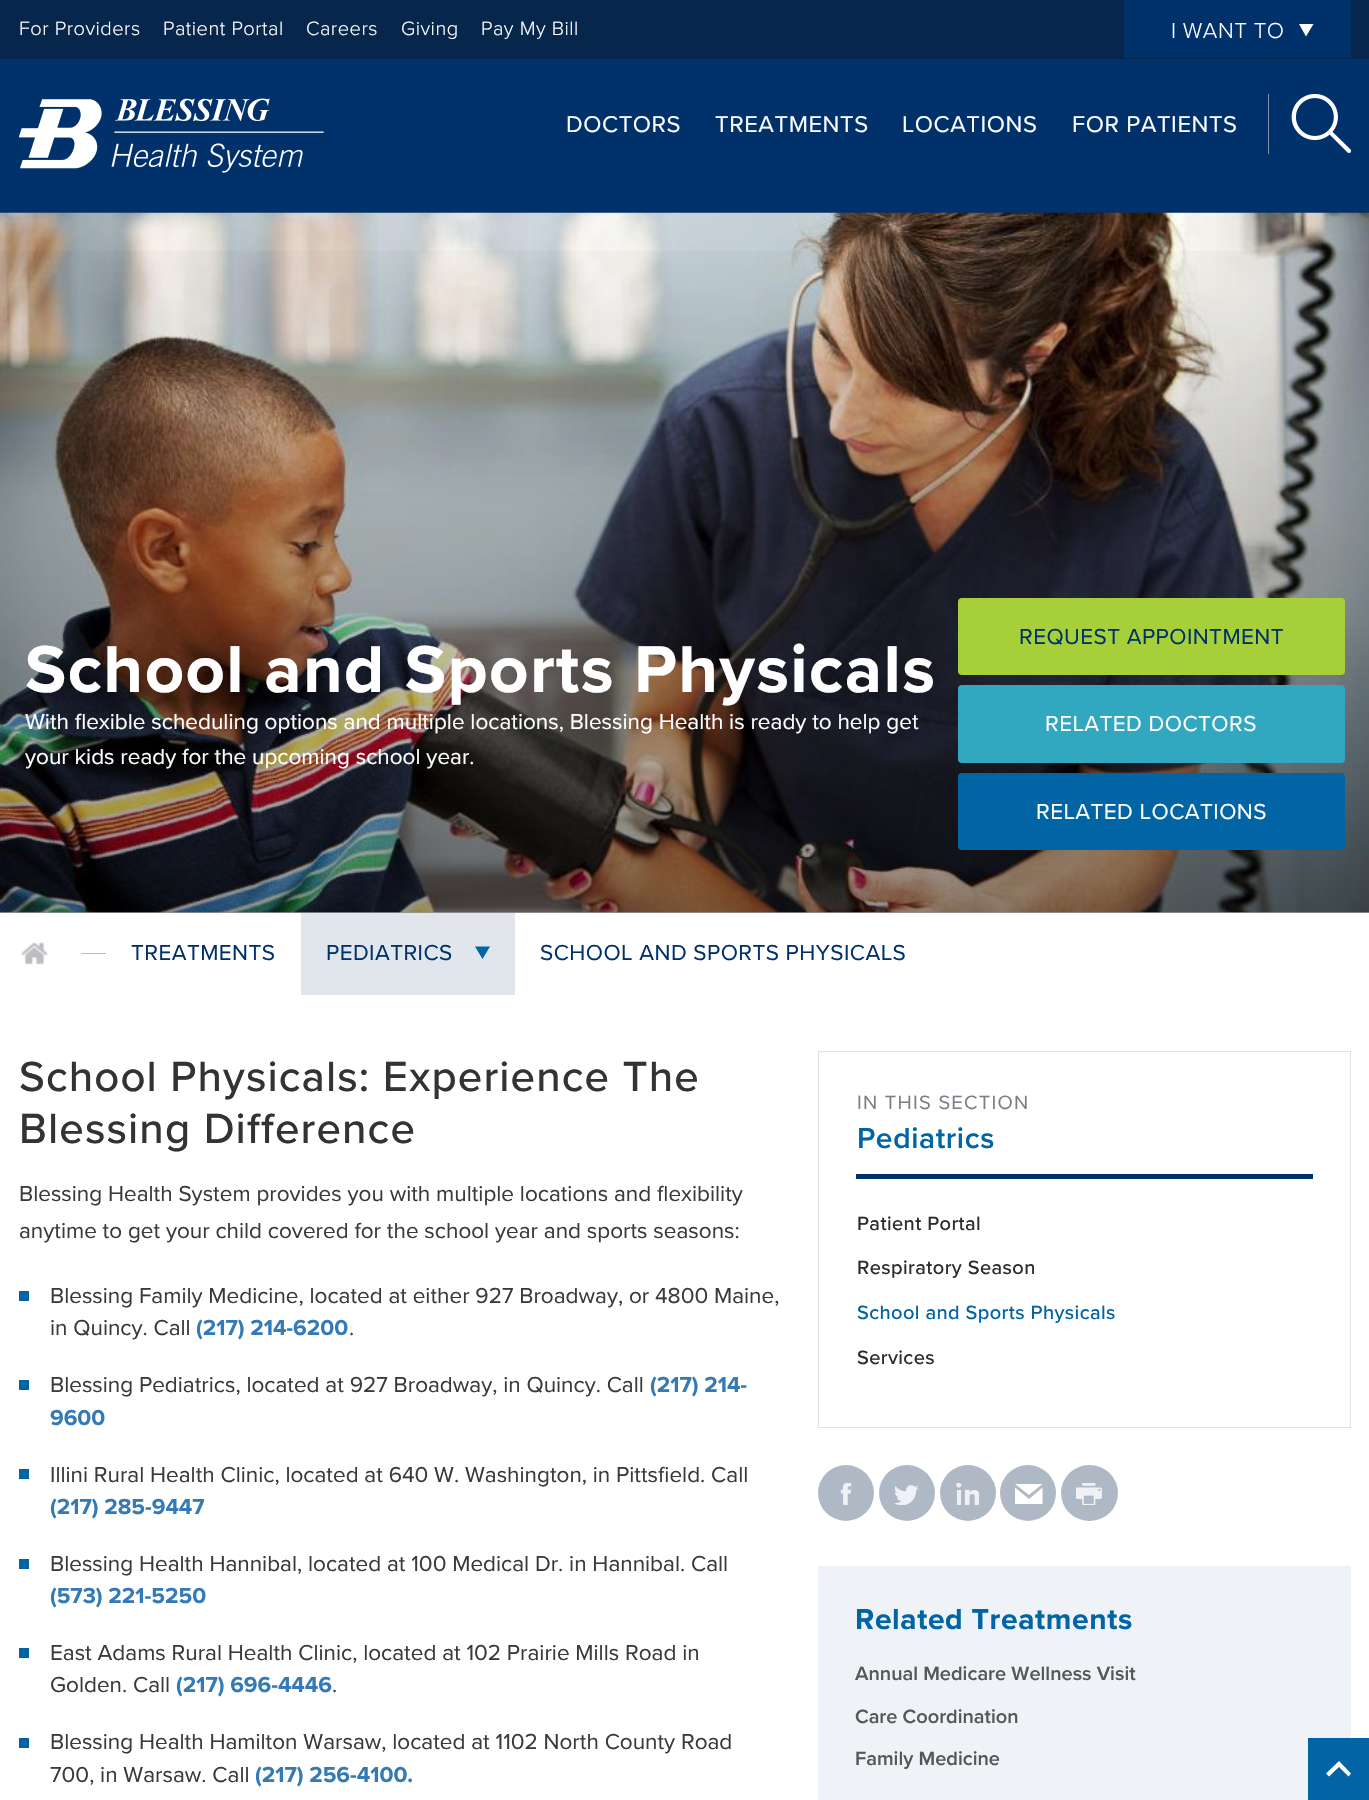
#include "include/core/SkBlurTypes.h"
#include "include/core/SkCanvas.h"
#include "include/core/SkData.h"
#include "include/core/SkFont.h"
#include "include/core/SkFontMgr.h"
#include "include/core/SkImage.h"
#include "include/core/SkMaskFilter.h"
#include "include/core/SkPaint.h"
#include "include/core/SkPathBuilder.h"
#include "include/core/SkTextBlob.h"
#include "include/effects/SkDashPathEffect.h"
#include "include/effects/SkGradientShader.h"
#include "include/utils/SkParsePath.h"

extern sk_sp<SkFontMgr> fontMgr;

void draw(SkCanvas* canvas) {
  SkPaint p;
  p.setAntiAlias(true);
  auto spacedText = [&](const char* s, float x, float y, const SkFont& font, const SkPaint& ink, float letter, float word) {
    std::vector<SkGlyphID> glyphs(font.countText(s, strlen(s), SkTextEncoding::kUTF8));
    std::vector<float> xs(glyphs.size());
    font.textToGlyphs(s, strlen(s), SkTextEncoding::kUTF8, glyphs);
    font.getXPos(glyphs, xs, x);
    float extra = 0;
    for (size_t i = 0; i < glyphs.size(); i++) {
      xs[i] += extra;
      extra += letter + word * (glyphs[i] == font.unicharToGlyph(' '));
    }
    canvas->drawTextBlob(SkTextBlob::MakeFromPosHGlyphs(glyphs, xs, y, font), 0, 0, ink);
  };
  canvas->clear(SK_ColorWHITE);
  p.setColor(SkColorSetRGB(0, 49, 107));
  canvas->drawRect(SkRect::MakeLTRB(0, 59, 1369, 213), p);
  p.setColor(SkColorSetRGB(6, 38, 75));
  canvas->drawRect(SkRect::MakeLTRB(0, 0, 1369, 59), p);
  p.setColor(SkColorSetRGB(0, 49, 107));
  canvas->drawRect(SkRect::MakeLTRB(1124, 0, 1351, 58), p);
  p.setColor(SK_ColorWHITE);
  canvas->drawPath(SkPathBuilder().moveTo(1306, 36.5f).lineTo(1313.5f, 24).lineTo(1299, 24).close().detach(), p);
  canvas->drawImageRect(SkImages::DeferredFromEncodedData(SkData::MakeFromFileName("images/1.png")), SkRect::MakeLTRB(19, 98, 324, 173), SkSamplingOptions());
  p.setColor(SkColorSetRGB(127, 147, 170));
  canvas->drawRect(SkRect::MakeLTRB(1268, 94, 1269, 154), p);
  canvas->drawImageRect(SkImages::DeferredFromEncodedData(SkData::MakeFromFileName("images/2.png")), SkRect::MakeLTRB(1291, 94, 1351, 153), SkSamplingOptions());
  canvas->drawImageRect(SkImages::DeferredFromEncodedData(SkData::MakeFromFileName("images/3.png")), SkRect::MakeLTRB(0, 212, 1369, 913), SkSamplingOptions());
  {
    const SkColor colors[] = {SkColorSetARGB(102, 0, 0, 0), SkColorSetARGB(0, 0, 0, 0)};
    const float stops[] = {0, 1};
    const SkPoint ends[] = {{685, 913}, {685, 213}};
    p.setShader(SkGradientShader::MakeLinear(ends, colors, stops, 2, SkTileMode::kClamp));
    p.setAlpha(255);
  }
  canvas->drawRect(SkRect::MakeLTRB(0, 251, 1369, 913), p);
  p.setShader(nullptr);
  p.setColor(SkColorSetRGB(166, 207, 57));
  canvas->drawRoundRect(SkRect::MakeLTRB(958, 598, 1345, 675), 4, 4, p);
  p.setColor(SkColorSetRGB(49, 167, 192));
  canvas->drawRoundRect(SkRect::MakeLTRB(958, 685, 1345, 763), 4, 4, p);
  p.setColor(SkColorSetRGB(0, 100, 165));
  canvas->drawRoundRect(SkRect::MakeLTRB(958, 773, 1345, 850), 4, 4, p);
  canvas->drawImageRect(SkImages::DeferredFromEncodedData(SkData::MakeFromFileName("images/4.png")), SkRect::MakeLTRB(21, 942, 48, 965), SkSamplingOptions());
  p.setColor(SkColorSetRGB(180, 188, 195));
  canvas->drawRect(SkRect::MakeLTRB(81, 953, 106, 954), p);
  p.setColor(SkColorSetRGB(225, 230, 236));
  canvas->drawRect(SkRect::MakeLTRB(301, 913, 515, 995), p);
  p.setColor(SkColorSetRGB(0, 100, 165));
  canvas->drawPath(SkPathBuilder().moveTo(482.5f, 959).lineTo(490, 946.5f).lineTo(475, 946.5f).close().detach(), p);
  canvas->drawRect(SkRect::MakeLTRB(19, 1291, 29, 1301), p);
  canvas->drawRect(SkRect::MakeLTRB(19, 1380, 29, 1390), p);
  canvas->drawRect(SkRect::MakeLTRB(19, 1469, 29, 1479), p);
  canvas->drawRect(SkRect::MakeLTRB(19, 1559, 29, 1569), p);
  canvas->drawRect(SkRect::MakeLTRB(19, 1648, 29, 1658), p);
  canvas->drawRect(SkRect::MakeLTRB(19, 1738, 29, 1748), p);
  p.setStyle(SkPaint::kStroke_Style);
  p.setStrokeWidth(1);
  p.setColor(SkColorSetRGB(220, 226, 234));
  canvas->drawRect(SkRect::MakeLTRB(818.5f, 1051.5f, 1350.5f, 1427.5f), p);
  p.setStyle(SkPaint::kFill_Style);
  p.setColor(SkColorSetRGB(0, 49, 107));
  canvas->drawRect(SkRect::MakeLTRB(856, 1174, 1313, 1179), p);
  p.setColor(SkColorSetRGB(175, 185, 197));
  canvas->drawCircle(846, 1493, 28, p);
  canvas->drawImageRect(SkImages::DeferredFromEncodedData(SkData::MakeFromFileName("images/5.png")), SkRect::MakeLTRB(840, 1483, 852, 1505), SkSamplingOptions());
  canvas->drawCircle(907, 1493, 28, p);
  canvas->drawImageRect(SkImages::DeferredFromEncodedData(SkData::MakeFromFileName("images/6.png")), SkRect::MakeLTRB(894, 1485, 919, 1505), SkSamplingOptions());
  canvas->drawCircle(968, 1493, 28, p);
  canvas->drawImageRect(SkImages::DeferredFromEncodedData(SkData::MakeFromFileName("images/7.png")), SkRect::MakeLTRB(956, 1483, 979, 1505), SkSamplingOptions());
  canvas->drawCircle(1028, 1493, 28, p);
  p.setColor(SK_ColorWHITE);
  canvas->drawPath(SkPathBuilder().moveTo(1029, 1495).lineTo(1015, 1484).lineTo(1042.5f, 1484).close().moveTo(1029, 1499).lineTo(1015, 1487.5f).lineTo(1015, 1504).lineTo(1042.5f, 1504).lineTo(1042.5f, 1487.5f).close().detach(), p);
  p.setColor(SkColorSetRGB(175, 185, 197));
  canvas->drawRoundRect(SkRect::MakeLTRB(1061, 1465, 1118, 1521), 28, 28, p);
  canvas->drawImageRect(SkImages::DeferredFromEncodedData(SkData::MakeFromFileName("images/8.png")), SkRect::MakeLTRB(1076, 1483, 1102, 1505), SkSamplingOptions());
  p.setColor(SkColorSetRGB(239, 242, 246));
  canvas->drawRect(SkRect::MakeLTRB(818, 1566, 1351, 1800), p);
  p.setColor(SkColorSetRGB(0, 100, 165));
  canvas->drawRect(SkRect::MakeLTRB(1308, 1738, 1369, 1800), p);
  p.setColor(SK_ColorWHITE);
  canvas->drawPath(SkPathBuilder().moveTo(1339, 1761).lineTo(1326, 1773.5f).lineTo(1329, 1776.5f).lineTo(1339, 1767).lineTo(1348.5f, 1776.5f).lineTo(1351, 1773.5f).close().detach(), p);
  SkFont font1(fontMgr->matchFamilyStyle("Proxima Nova", SkFontStyle(300, SkFontStyle::kNormal_Width, SkFontStyle::kUpright_Slant)), 20);
  font1.setSubpixel(true);
  spacedText("For Providers", 19, 35, font1, p, 0.5f, 0);
  spacedText("Patient Portal", 163, 35, font1, p, 0.5f, 0);
  spacedText("Careers", 306, 35, font1, p, 0.5f, 0);
  spacedText("Giving", 401, 35, font1, p, 0.5f, 0);
  spacedText("Pay My Bill", 481, 35, font1, p, 0.5f, 0);
  SkFont font2(fontMgr->matchFamilyStyle("Proxima Nova", SkFontStyle(300, SkFontStyle::kNormal_Width, SkFontStyle::kUpright_Slant)), 22.5f);
  font2.setSubpixel(true);
  spacedText("I WANT TO", 1171, 38, font2, p, 0.5f, 0);
  SkFont font3(fontMgr->matchFamilyStyle("Proxima Nova", SkFontStyle::Normal()), 23.75f);
  font3.setSubpixel(true);
  spacedText("DOCTORS", 566, 132, font3, p, 0.6f, 0);
  spacedText("TREATMENTS", 715, 132, font3, p, 0.6f, 0);
  spacedText("LOCATIONS", 902, 132, font3, p, 0.6f, 0);
  spacedText("FOR PATIENTS", 1072, 132, font3, p, 0.6f, 0);
  SkFont font4(fontMgr->matchFamilyStyle("Proxima Nova", SkFontStyle::Bold()), 68.75f);
  font4.setSubpixel(true);
  spacedText("School and Sports Physicals", 25, 692, font4, p, 1.4f, 0);
  SkFont font5(fontMgr->matchFamilyStyle("Proxima Nova", SkFontStyle::Normal()), 22.5f);
  font5.setSubpixel(true);
  canvas->drawString("With flexible scheduling options and multiple locations, Blessing Health is ready to help get", 25, 729, font5, p);
  canvas->drawString("your kids ready for the upcoming school year.", 25, 764, font5, p);
  p.setColor(SkColorSetRGB(0, 49, 107));
  spacedText("REQUEST APPOINTMENT", 1019, 644, font5, p, 0.45f, 0);
  p.setColor(SK_ColorWHITE);
  spacedText("RELATED DOCTORS", 1045, 731, font5, p, 0.45f, 0);
  spacedText("RELATED LOCATIONS", 1036, 819, font5, p, 0.45f, 0);
  p.setColor(SkColorSetRGB(0, 49, 107));
  spacedText("TREATMENTS", 131, 960, font5, p, 0.45f, 0);
  spacedText("PEDIATRICS", 326, 960, font5, p, 0.45f, 0);
  spacedText("SCHOOL AND SPORTS PHYSICALS", 540, 960, font5, p, 0.45f, 0);
  SkFont font6(fontMgr->matchFamilyStyle("Proxima Nova", SkFontStyle(500, SkFontStyle::kNormal_Width, SkFontStyle::kUpright_Slant)), 43.75f);
  font6.setSubpixel(true);
  p.setColor(SkColorSetRGB(51, 51, 51));
  spacedText("School Physicals: Experience The", 19, 1091, font6, p, 1.1f, 0);
  spacedText("Blessing Difference", 19, 1143, font6, p, 1.1f, 0);
  p.setColor(SkColorSetRGB(58, 58, 58));
  canvas->drawString("Blessing Health System provides you with multiple locations and flexibility", 19, 1201, font5, p);
  canvas->drawString("anytime to get your child covered for the school year and sports seasons:", 19, 1238, font5, p);
  canvas->drawString("Blessing Family Medicine, located at either 927 Broadway, or 4800 Maine,", 50, 1303, font5, p);
  canvas->drawString("in Quincy. Call", 50, 1335, font5, p);
  SkFont font7(fontMgr->matchFamilyStyle("Proxima Nova", SkFontStyle::Bold()), 22.5f);
  font7.setSubpixel(true);
  p.setColor(SkColorSetRGB(51, 122, 183));
  canvas->drawString("(217) 214-6200", 196, 1335, font7, p);
  p.setColor(SkColorSetRGB(58, 58, 58));
  canvas->drawString(".", 349, 1335, font5, p);
  canvas->drawString("Blessing Pediatrics, located at 927 Broadway, in Quincy. Call", 50, 1392, font5, p);
  p.setColor(SkColorSetRGB(51, 122, 183));
  canvas->drawString("(217) 214-", 650, 1392, font7, p);
  canvas->drawString("9600", 50, 1425, font7, p);
  p.setColor(SkColorSetRGB(58, 58, 58));
  canvas->drawString("Illini Rural Health Clinic, located at 640 W. Washington, in Pittsfield. Call", 50, 1482, font5, p);
  p.setColor(SkColorSetRGB(51, 122, 183));
  canvas->drawString("(217) 285-9447", 50, 1514, font7, p);
  p.setColor(SkColorSetRGB(58, 58, 58));
  canvas->drawString("Blessing Health Hannibal, located at 100 Medical Dr. in Hannibal. Call", 50, 1571, font5, p);
  p.setColor(SkColorSetRGB(51, 122, 183));
  canvas->drawString("(573) 221-5250", 50, 1603, font7, p);
  p.setColor(SkColorSetRGB(58, 58, 58));
  canvas->drawString("East Adams Rural Health Clinic, located at 102 Prairie Mills Road in", 50, 1660, font5, p);
  canvas->drawString("Golden. Call", 50, 1692, font5, p);
  p.setColor(SkColorSetRGB(51, 122, 183));
  canvas->drawString("(217) 696-4446", 176, 1692, font7, p);
  p.setColor(SkColorSetRGB(58, 58, 58));
  canvas->drawString(".", 332, 1692, font5, p);
  canvas->drawString("Blessing Health Hamilton Warsaw, located at 1102 North County Road", 50, 1749, font5, p);
  canvas->drawString("700, in Warsaw. Call", 50, 1782, font5, p);
  p.setColor(SkColorSetRGB(51, 122, 183));
  canvas->drawString("(217) 256-4100.", 255, 1782, font7, p);
  SkFont font8(fontMgr->matchFamilyStyle("Proxima Nova", SkFontStyle::Normal()), 20);
  font8.setSubpixel(true);
  p.setColor(SkColorSetRGB(122, 127, 136));
  spacedText("IN THIS SECTION", 857, 1109, font8, p, 1.25f, 0);
  SkFont font9(fontMgr->matchFamilyStyle("Proxima Nova", SkFontStyle(600, SkFontStyle::kNormal_Width, SkFontStyle::kUpright_Slant)), 30);
  font9.setSubpixel(true);
  p.setColor(SkColorSetRGB(0, 100, 165));
  spacedText("Pediatrics", 857, 1148, font9, p, 0.6f, 0);
  SkFont font10(fontMgr->matchFamilyStyle("Proxima Nova", SkFontStyle(500, SkFontStyle::kNormal_Width, SkFontStyle::kUpright_Slant)), 20);
  font10.setSubpixel(true);
  p.setColor(SkColorSetRGB(45, 45, 45));
  spacedText("Patient Portal", 857, 1230, font10, p, 0.4f, 0);
  spacedText("Respiratory Season", 857, 1274, font10, p, 0.4f, 0);
  p.setColor(SkColorSetRGB(0, 100, 165));
  spacedText("School and Sports Physicals", 857, 1319, font10, p, 0.4f, 0);
  p.setColor(SkColorSetRGB(45, 45, 45));
  spacedText("Services", 857, 1364, font10, p, 0.4f, 0);
  SkFont font11(fontMgr->matchFamilyStyle("Proxima Nova", SkFontStyle::Bold()), 30);
  font11.setSubpixel(true);
  p.setColor(SkColorSetRGB(0, 100, 165));
  spacedText("Related Treatments", 855, 1629, font11, p, 0.6f, 0);
  SkFont font12(fontMgr->matchFamilyStyle("Proxima Nova", SkFontStyle(600, SkFontStyle::kNormal_Width, SkFontStyle::kUpright_Slant)), 20);
  font12.setSubpixel(true);
  p.setColor(SkColorSetRGB(87, 87, 87));
  canvas->drawString("Annual Medicare Wellness Visit", 855, 1680, font12, p);
  canvas->drawString("Care Coordination", 855, 1723, font12, p);
  canvas->drawString("Family Medicine", 855, 1765, font12, p);
}
